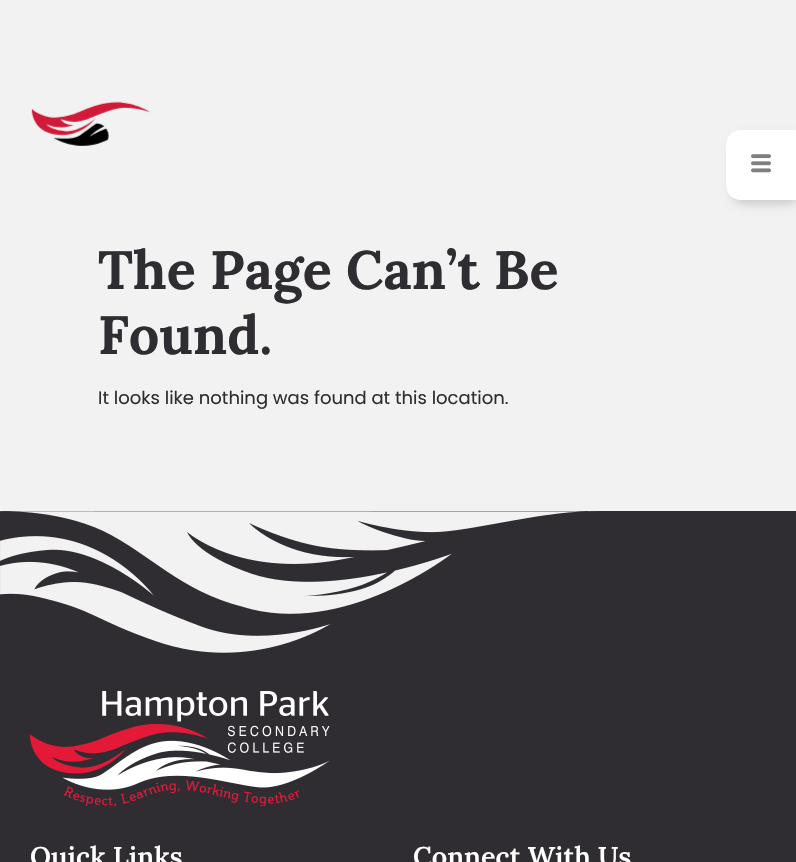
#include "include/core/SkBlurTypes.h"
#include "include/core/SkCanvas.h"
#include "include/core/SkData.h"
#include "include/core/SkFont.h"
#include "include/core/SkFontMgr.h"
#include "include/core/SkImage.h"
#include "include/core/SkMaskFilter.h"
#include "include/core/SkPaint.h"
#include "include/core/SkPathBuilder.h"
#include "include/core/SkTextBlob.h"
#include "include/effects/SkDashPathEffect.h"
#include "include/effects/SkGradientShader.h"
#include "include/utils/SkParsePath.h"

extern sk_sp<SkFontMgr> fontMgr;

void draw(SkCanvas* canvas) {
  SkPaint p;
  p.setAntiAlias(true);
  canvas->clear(SkColorSetRGB(242, 242, 243));
  canvas->drawImageRect(SkImages::DeferredFromEncodedData(SkData::MakeFromFileName("images/1.png")), SkRect::MakeLTRB(31, 101, 150, 146), SkSamplingOptions());
  p.setColor(SkColorSetARGB(38, 0, 0, 0));
  p.setMaskFilter(SkMaskFilter::MakeBlur(kNormal_SkBlurStyle, 5));
  canvas->drawRoundRect(SkRect::MakeLTRB(731, 135, 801, 205), 15, 15, p);
  p.setMaskFilter(nullptr);
  p.setColor(SK_ColorWHITE);
  canvas->drawPath(SkPathBuilder().moveTo(741, 130).lineTo(796, 130).lineTo(796, 200).lineTo(741, 200).cubicTo(732.5f, 200, 726, 193.5f, 726, 185).lineTo(726, 145).cubicTo(726, 136.5f, 732.5f, 130, 741, 130).close().detach(), p);
  canvas->drawImageRect(SkImages::DeferredFromEncodedData(SkData::MakeFromFileName("images/2.png")), SkRect::MakeLTRB(751, 154, 771, 173), SkSamplingOptions());
  p.setColor(SkColorSetRGB(47, 45, 49));
  canvas->drawRect(SkRect::MakeLTRB(0, 511, 796, 862), p);
  canvas->drawImageRect(SkImages::DeferredFromEncodedData(SkData::MakeFromFileName("images/3.png")), SkRect::MakeLTRB(0, 511, 596, 653), SkSamplingOptions());
  canvas->drawImageRect(SkImages::DeferredFromEncodedData(SkData::MakeFromFileName("images/4.png")), SkRect::MakeLTRB(30, 691, 330, 806), SkSamplingOptions());
  SkFont font1(fontMgr->matchFamilyStyle("Lora", SkFontStyle::Bold()), 54);
  font1.setSubpixel(true);
  canvas->drawString("The Page Can’t Be", 98, 289, font1, p);
  canvas->drawString("Found.", 98, 354, font1, p);
  SkFont font2(fontMgr->matchFamilyStyle("Poppins", SkFontStyle::Normal()), 18);
  font2.setSubpixel(true);
  canvas->drawString("It looks like nothing was found at this location.", 98, 404, font2, p);
  SkFont font3(fontMgr->matchFamilyStyle("Lora", SkFontStyle(600, SkFontStyle::kNormal_Width, SkFontStyle::kUpright_Slant)), 27);
  font3.setSubpixel(true);
  p.setColor(SK_ColorWHITE);
  canvas->drawString("Quick Links", 30, 866, font3, p);
  canvas->drawString("Connect With Us", 413, 866, font3, p);
}
